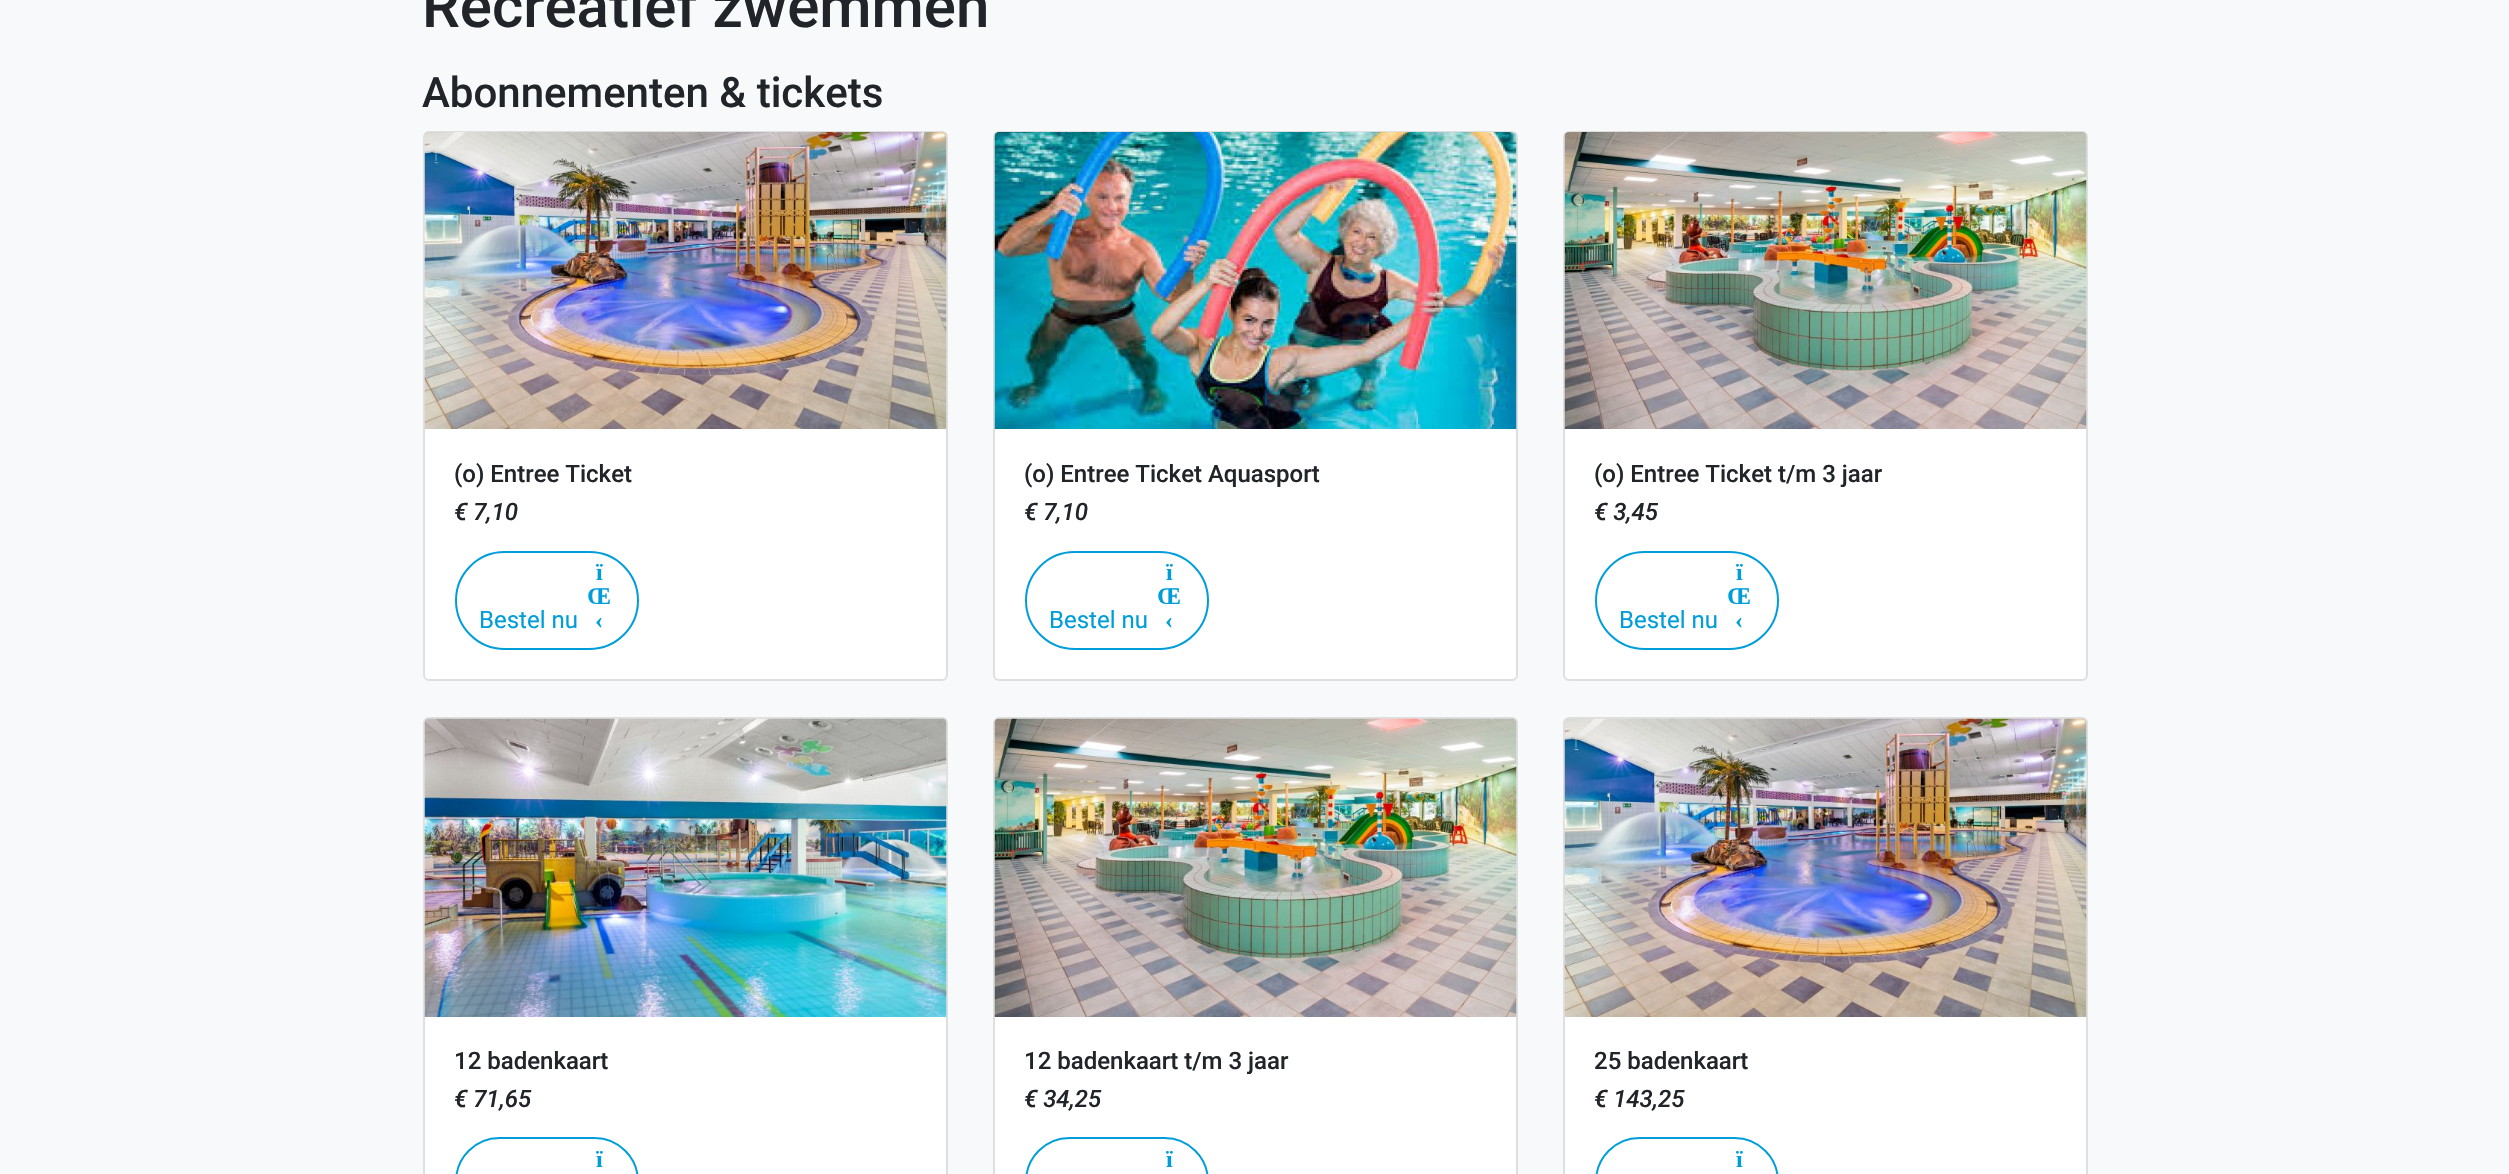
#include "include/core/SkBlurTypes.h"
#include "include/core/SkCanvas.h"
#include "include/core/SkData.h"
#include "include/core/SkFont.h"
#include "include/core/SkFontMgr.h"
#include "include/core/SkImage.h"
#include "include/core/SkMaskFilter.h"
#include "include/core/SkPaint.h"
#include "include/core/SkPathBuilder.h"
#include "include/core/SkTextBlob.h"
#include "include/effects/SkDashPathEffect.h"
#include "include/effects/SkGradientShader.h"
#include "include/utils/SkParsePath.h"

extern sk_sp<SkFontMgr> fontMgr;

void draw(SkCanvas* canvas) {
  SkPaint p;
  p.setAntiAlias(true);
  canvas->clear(SkColorSetRGB(248, 249, 250));
  p.setColor(SK_ColorWHITE);
  canvas->drawRoundRect(SkRect::MakeLTRB(424, 132, 947, 680), 5, 5, p);
  p.setStyle(SkPaint::kStroke_Style);
  p.setStrokeWidth(2);
  p.setColor(SkColorSetRGB(223, 223, 223));
  canvas->drawRoundRect(SkRect::MakeLTRB(424, 132, 947, 680), 5, 5, p);
  canvas->drawImageRect(SkImages::DeferredFromEncodedData(SkData::MakeFromFileName("images/1.png")), SkRect::MakeLTRB(424, 132, 947, 429), SkSamplingOptions());
  p.setColor(SkColorSetRGB(0, 157, 219));
  canvas->drawRoundRect(SkRect::MakeLTRB(456, 552, 638, 649), 48.5f, 48.5f, p);
  p.setStyle(SkPaint::kFill_Style);
  p.setColor(SK_ColorWHITE);
  canvas->drawRoundRect(SkRect::MakeLTRB(994, 132, 1517, 680), 5, 5, p);
  p.setStyle(SkPaint::kStroke_Style);
  p.setColor(SkColorSetRGB(223, 223, 223));
  canvas->drawRoundRect(SkRect::MakeLTRB(994, 132, 1517, 680), 5, 5, p);
  canvas->drawImageRect(SkImages::DeferredFromEncodedData(SkData::MakeFromFileName("images/2.png")), SkRect::MakeLTRB(994, 132, 1517, 429), SkSamplingOptions());
  p.setColor(SkColorSetRGB(0, 157, 219));
  canvas->drawRoundRect(SkRect::MakeLTRB(1026, 552, 1208, 649), 48.5f, 48.5f, p);
  p.setStyle(SkPaint::kFill_Style);
  p.setColor(SK_ColorWHITE);
  canvas->drawRoundRect(SkRect::MakeLTRB(1564, 132, 2087, 680), 5, 5, p);
  p.setStyle(SkPaint::kStroke_Style);
  p.setColor(SkColorSetRGB(223, 223, 223));
  canvas->drawRoundRect(SkRect::MakeLTRB(1564, 132, 2087, 680), 5, 5, p);
  canvas->drawImageRect(SkImages::DeferredFromEncodedData(SkData::MakeFromFileName("images/3.png")), SkRect::MakeLTRB(1564, 132, 2087, 429), SkSamplingOptions());
  p.setColor(SkColorSetRGB(0, 157, 219));
  canvas->drawRoundRect(SkRect::MakeLTRB(1596, 552, 1778, 649), 48.5f, 48.5f, p);
  p.setStyle(SkPaint::kFill_Style);
  p.setColor(SK_ColorWHITE);
  canvas->drawRoundRect(SkRect::MakeLTRB(424, 718, 947, 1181), 5, 5, p);
  p.setStyle(SkPaint::kStroke_Style);
  p.setColor(SkColorSetRGB(223, 223, 223));
  canvas->drawRoundRect(SkRect::MakeLTRB(424, 718, 947, 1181), 5, 5, p);
  canvas->drawImageRect(SkImages::DeferredFromEncodedData(SkData::MakeFromFileName("images/4.png")), SkRect::MakeLTRB(424, 718, 947, 1017), SkSamplingOptions());
  p.setColor(SkColorSetRGB(0, 157, 219));
  canvas->drawRoundRect(SkRect::MakeLTRB(456, 1138, 638, 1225), 48.5f, 48.5f, p);
  p.setStyle(SkPaint::kFill_Style);
  p.setColor(SK_ColorWHITE);
  canvas->drawRoundRect(SkRect::MakeLTRB(994, 718, 1517, 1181), 5, 5, p);
  p.setStyle(SkPaint::kStroke_Style);
  p.setColor(SkColorSetRGB(223, 223, 223));
  canvas->drawRoundRect(SkRect::MakeLTRB(994, 718, 1517, 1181), 5, 5, p);
  canvas->drawImageRect(SkImages::DeferredFromEncodedData(SkData::MakeFromFileName("images/5.png")), SkRect::MakeLTRB(994, 718, 1517, 1017), SkSamplingOptions());
  p.setColor(SkColorSetRGB(0, 157, 219));
  canvas->drawRoundRect(SkRect::MakeLTRB(1026, 1138, 1208, 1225), 48.5f, 48.5f, p);
  p.setStyle(SkPaint::kFill_Style);
  p.setColor(SK_ColorWHITE);
  canvas->drawRoundRect(SkRect::MakeLTRB(1564, 718, 2087, 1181), 5, 5, p);
  p.setStyle(SkPaint::kStroke_Style);
  p.setColor(SkColorSetRGB(223, 223, 223));
  canvas->drawRoundRect(SkRect::MakeLTRB(1564, 718, 2087, 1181), 5, 5, p);
  canvas->drawImageRect(SkImages::DeferredFromEncodedData(SkData::MakeFromFileName("images/6.png")), SkRect::MakeLTRB(1564, 718, 2087, 1017), SkSamplingOptions());
  p.setColor(SkColorSetRGB(0, 157, 219));
  canvas->drawRoundRect(SkRect::MakeLTRB(1596, 1138, 1778, 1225), 48.5f, 48.5f, p);
  SkFont font1(fontMgr->matchFamilyStyle("Roboto", SkFontStyle(500, SkFontStyle::kNormal_Width, SkFontStyle::kUpright_Slant)), 60);
  font1.setSubpixel(true);
  p.setStyle(SkPaint::kFill_Style);
  p.setColor(SkColorSetRGB(33, 37, 41));
  canvas->drawString("Recreatief zwemmen", 422, 27, font1, p);
  SkFont font2(fontMgr->matchFamilyStyle("Roboto", SkFontStyle(500, SkFontStyle::kNormal_Width, SkFontStyle::kUpright_Slant)), 42);
  font2.setSubpixel(true);
  canvas->drawString("Abonnementen & tickets", 422, 107, font2, p);
  SkFont font3(fontMgr->matchFamilyStyle("Roboto", SkFontStyle(500, SkFontStyle::kNormal_Width, SkFontStyle::kUpright_Slant)), 24);
  font3.setSubpixel(true);
  canvas->drawString("(o) Entree Ticket", 454, 482, font3, p);
  SkFont font4(fontMgr->matchFamilyStyle("Roboto", SkFontStyle(500, SkFontStyle::kNormal_Width, SkFontStyle::kItalic_Slant)), 24);
  font4.setSubpixel(true);
  canvas->drawString("€ 7,10", 454, 520, font4, p);
  SkFont font5(fontMgr->matchFamilyStyle("Roboto", SkFontStyle::Normal()), 24);
  font5.setSubpixel(true);
  p.setColor(SkColorSetRGB(0, 157, 219));
  canvas->drawString("Bestel nu", 479, 628, font5, p);
  SkFont font6(fontMgr->matchFamilyStyle("Liberation Serif", SkFontStyle::Bold()), 24);
  font6.setSubpixel(true);
  canvas->drawString("ï", 596, 580, font6, p);
  canvas->drawString("Œ", 587, 604, font6, p);
  canvas->drawString("‹", 595, 628, font6, p);
  p.setColor(SkColorSetRGB(33, 37, 41));
  canvas->drawString("(o) Entree Ticket Aquasport", 1024, 482, font3, p);
  canvas->drawString("€ 7,10", 1024, 520, font4, p);
  p.setColor(SkColorSetRGB(0, 157, 219));
  canvas->drawString("Bestel nu", 1049, 628, font5, p);
  canvas->drawString("ï", 1166, 580, font6, p);
  canvas->drawString("Œ", 1157, 604, font6, p);
  canvas->drawString("‹", 1165, 628, font6, p);
  p.setColor(SkColorSetRGB(33, 37, 41));
  canvas->drawString("(o) Entree Ticket t/m 3 jaar", 1594, 482, font3, p);
  canvas->drawString("€ 3,45", 1594, 520, font4, p);
  p.setColor(SkColorSetRGB(0, 157, 219));
  canvas->drawString("Bestel nu", 1619, 628, font5, p);
  canvas->drawString("ï", 1736, 580, font6, p);
  canvas->drawString("Œ", 1727, 604, font6, p);
  canvas->drawString("‹", 1735, 628, font6, p);
  p.setColor(SkColorSetRGB(33, 37, 41));
  canvas->drawString("12 badenkaart", 454, 1069, font3, p);
  canvas->drawString("€ 71,65", 454, 1107, font4, p);
  p.setColor(SkColorSetRGB(0, 157, 219));
  canvas->drawString("ï", 596, 1167, font6, p);
  p.setColor(SkColorSetRGB(33, 37, 41));
  canvas->drawString("12 badenkaart t/m 3 jaar", 1024, 1069, font3, p);
  canvas->drawString("€ 34,25", 1024, 1107, font4, p);
  p.setColor(SkColorSetRGB(0, 157, 219));
  canvas->drawString("ï", 1166, 1167, font6, p);
  p.setColor(SkColorSetRGB(33, 37, 41));
  canvas->drawString("25 badenkaart", 1594, 1069, font3, p);
  canvas->drawString("€ 143,25", 1594, 1107, font4, p);
  p.setColor(SkColorSetRGB(0, 157, 219));
  canvas->drawString("ï", 1736, 1167, font6, p);
}
